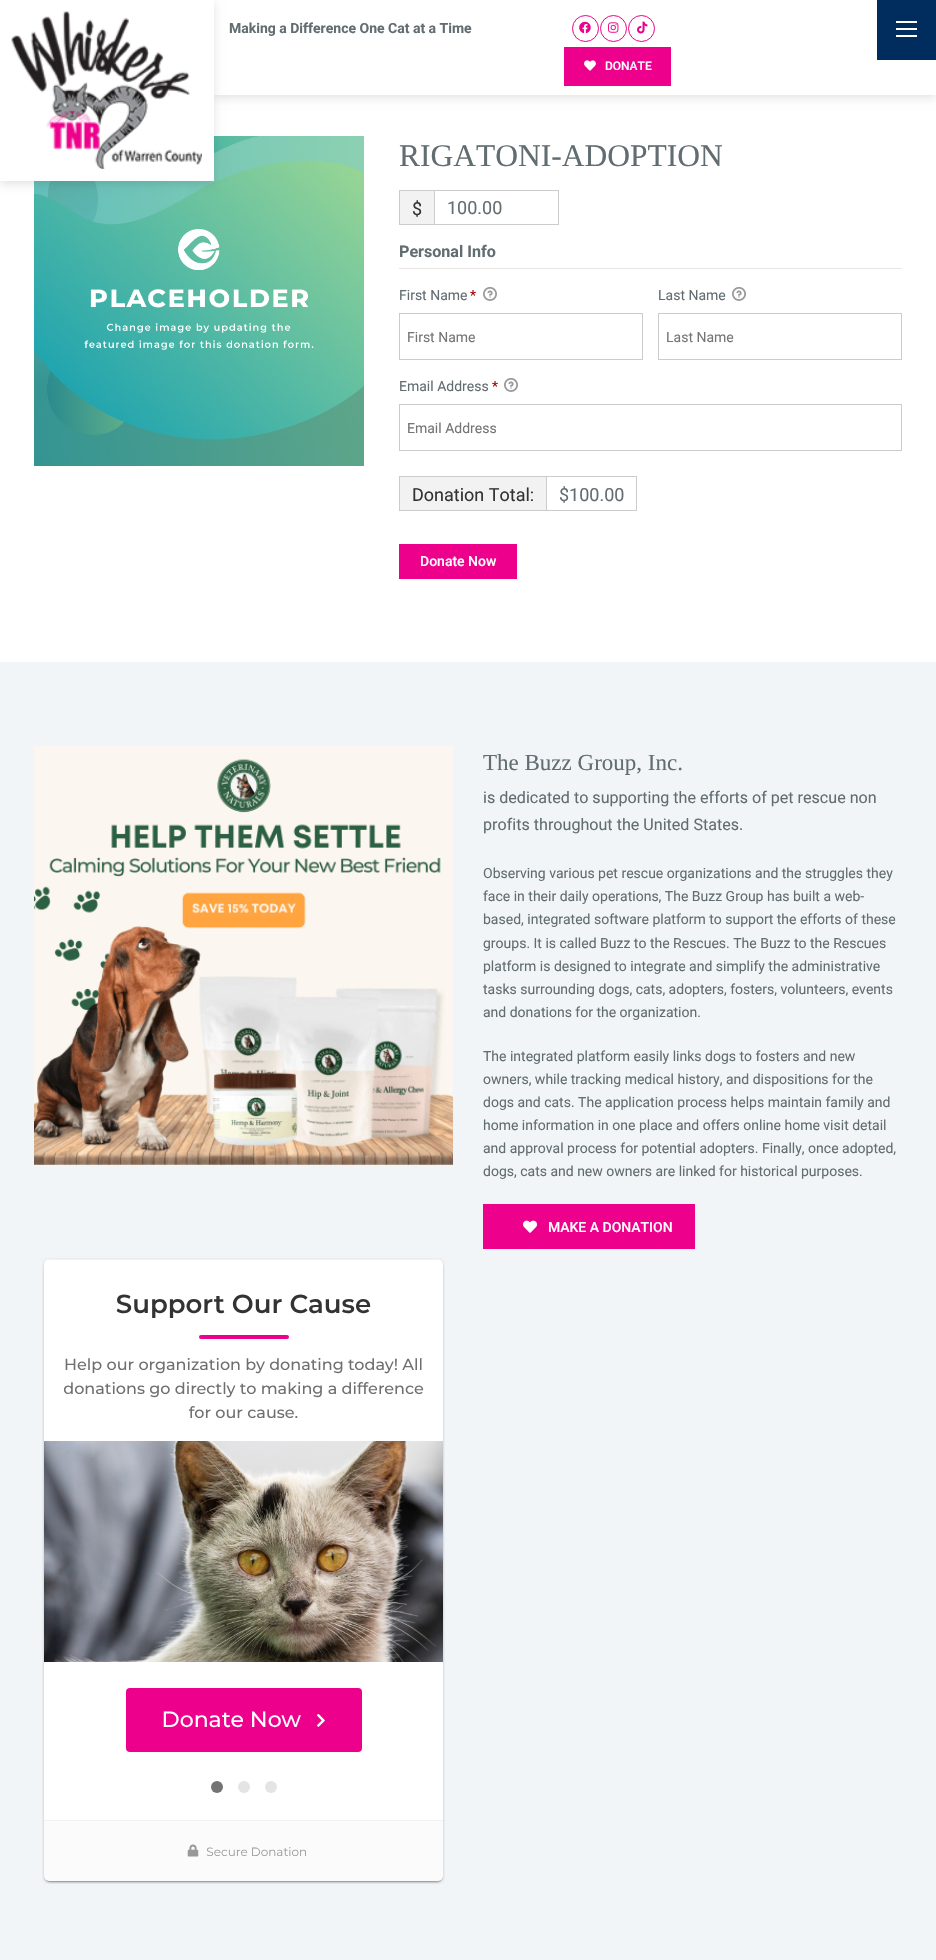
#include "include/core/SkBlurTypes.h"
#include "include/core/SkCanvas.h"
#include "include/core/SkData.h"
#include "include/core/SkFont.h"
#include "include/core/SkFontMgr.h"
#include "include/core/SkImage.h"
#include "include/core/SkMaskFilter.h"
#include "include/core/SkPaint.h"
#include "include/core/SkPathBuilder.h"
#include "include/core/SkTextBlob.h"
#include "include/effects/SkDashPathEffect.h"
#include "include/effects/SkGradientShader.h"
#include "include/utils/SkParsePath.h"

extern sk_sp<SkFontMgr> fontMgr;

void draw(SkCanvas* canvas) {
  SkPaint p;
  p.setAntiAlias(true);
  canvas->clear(SK_ColorWHITE);
  p.setColor(SkColorSetARGB(28, 0, 0, 0));
  p.setMaskFilter(SkMaskFilter::MakeBlur(kNormal_SkBlurStyle, 4.5f));
  canvas->drawRect(SkRect::MakeLTRB(214, 3, 936, 98), p);
  p.setMaskFilter(nullptr);
  p.setColor(SK_ColorWHITE);
  canvas->drawRect(SkRect::MakeLTRB(214, 0, 936, 95), p);
  canvas->drawImageRect(SkImages::DeferredFromEncodedData(SkData::MakeFromFileName("images/6.png")), SkRect::MakeLTRB(34, 136, 364, 466), SkSamplingOptions());
  p.setColor(SkColorSetARGB(28, 0, 0, 0));
  p.setMaskFilter(SkMaskFilter::MakeBlur(kNormal_SkBlurStyle, 4.5f));
  canvas->drawRect(SkRect::MakeLTRB(0, 3, 214, 184), p);
  p.setMaskFilter(nullptr);
  p.setColor(SK_ColorWHITE);
  canvas->drawRect(SkRect::MakeLTRB(0, 0, 214, 181), p);
  canvas->drawImageRect(SkImages::DeferredFromEncodedData(SkData::MakeFromFileName("images/1.png")), SkRect::MakeLTRB(11, 11, 202, 169), SkSamplingOptions());
  p.setStyle(SkPaint::kStroke_Style);
  p.setStrokeWidth(1);
  p.setColor(SkColorSetRGB(236, 0, 140));
  canvas->drawCircle(585.5f, 28.5f, 13, p);
  canvas->drawImageRect(SkImages::DeferredFromEncodedData(SkData::MakeFromFileName("images/2.png")), SkRect::MakeLTRB(579, 21, 591, 34), SkSamplingOptions());
  canvas->drawCircle(613.5f, 28.5f, 13, p);
  canvas->drawImageRect(SkImages::DeferredFromEncodedData(SkData::MakeFromFileName("images/3.png")), SkRect::MakeLTRB(608, 22, 619, 33), SkSamplingOptions());
  canvas->drawCircle(641.5f, 28.5f, 13, p);
  canvas->drawImageRect(SkImages::DeferredFromEncodedData(SkData::MakeFromFileName("images/4.png")), SkRect::MakeLTRB(637, 21, 648, 34), SkSamplingOptions());
  p.setStyle(SkPaint::kFill_Style);
  canvas->drawRect(SkRect::MakeLTRB(564, 47, 671, 86), p);
  canvas->drawImageRect(SkImages::DeferredFromEncodedData(SkData::MakeFromFileName("images/5.png")), SkRect::MakeLTRB(584, 60, 596, 71), SkSamplingOptions());
  p.setColor(SkColorSetRGB(0, 44, 94));
  canvas->drawRect(SkRect::MakeLTRB(877, 0, 936, 60), p);
  p.setColor(SK_ColorWHITE);
  canvas->drawRect(SkRect::MakeLTRB(896, 21, 917, 23), p);
  canvas->drawRect(SkRect::MakeLTRB(896, 28, 917, 30), p);
  canvas->drawRect(SkRect::MakeLTRB(896, 35, 917, 37), p);
  p.setColor(SkColorSetRGB(242, 242, 242));
  canvas->drawRect(SkRect::MakeLTRB(400, 191, 434, 224), p);
  p.setColor(SkColorSetRGB(204, 204, 204));
  canvas->drawRect(SkRect::MakeLTRB(399, 190, 434, 191), p);
  canvas->drawRect(SkRect::MakeLTRB(399, 224, 434, 225), p);
  canvas->drawRect(SkRect::MakeLTRB(399, 190, 400, 225), p);
  p.setStyle(SkPaint::kStroke_Style);
  canvas->drawRect(SkRect::MakeLTRB(434.5f, 190.5f, 558.5f, 224.5f), p);
  p.setStyle(SkPaint::kFill_Style);
  p.setColor(SkColorSetRGB(230, 230, 230));
  canvas->drawRect(SkRect::MakeLTRB(399, 268, 902, 269), p);
  canvas->drawImageRect(SkImages::DeferredFromEncodedData(SkData::MakeFromFileName("images/7.png")), SkRect::MakeLTRB(483, 287, 497, 301), SkSamplingOptions());
  p.setStyle(SkPaint::kStroke_Style);
  p.setColor(SkColorSetRGB(204, 204, 204));
  canvas->drawRect(SkRect::MakeLTRB(399.5f, 313.5f, 642.5f, 359.5f), p);
  canvas->drawImageRect(SkImages::DeferredFromEncodedData(SkData::MakeFromFileName("images/7.png")), SkRect::MakeLTRB(732, 287, 746, 301), SkSamplingOptions());
  canvas->drawRect(SkRect::MakeLTRB(658.5f, 313.5f, 901.5f, 359.5f), p);
  canvas->drawImageRect(SkImages::DeferredFromEncodedData(SkData::MakeFromFileName("images/7.png")), SkRect::MakeLTRB(504, 378, 518, 392), SkSamplingOptions());
  canvas->drawRect(SkRect::MakeLTRB(399.5f, 404.5f, 901.5f, 450.5f), p);
  p.setStyle(SkPaint::kFill_Style);
  p.setColor(SkColorSetRGB(242, 242, 242));
  canvas->drawRect(SkRect::MakeLTRB(399.5f, 476.5f, 546.5f, 510.5f), p);
  p.setStyle(SkPaint::kStroke_Style);
  p.setColor(SkColorSetRGB(204, 204, 204));
  canvas->drawRect(SkRect::MakeLTRB(399.5f, 476.5f, 546.5f, 510.5f), p);
  p.setStyle(SkPaint::kFill_Style);
  canvas->drawRect(SkRect::MakeLTRB(547, 476, 637, 477), p);
  canvas->drawRect(SkRect::MakeLTRB(636, 476, 637, 511), p);
  canvas->drawRect(SkRect::MakeLTRB(547, 510, 637, 511), p);
  p.setColor(SkColorSetRGB(236, 0, 140));
  canvas->drawRect(SkRect::MakeLTRB(399, 544, 517, 579), p);
  p.setColor(SkColorSetRGB(242, 245, 247));
  canvas->drawRect(SkRect::MakeLTRB(0, 662, 936, 1960), p);
  canvas->drawImageRect(SkImages::DeferredFromEncodedData(SkData::MakeFromFileName("images/8.png")), SkRect::MakeLTRB(34, 746, 453, 1165), SkSamplingOptions());
  p.setColor(SkColorSetRGB(236, 0, 140));
  canvas->drawRect(SkRect::MakeLTRB(483, 1204, 695, 1249), p);
  canvas->drawImageRect(SkImages::DeferredFromEncodedData(SkData::MakeFromFileName("images/9.png")), SkRect::MakeLTRB(523, 1220, 537, 1233), SkSamplingOptions());
  canvas->drawImageRect(SkImages::DeferredFromEncodedData(SkData::MakeFromFileName("images/10.png")), SkRect::MakeLTRB(42, 1258, 445, 1884), SkSamplingOptions());
  SkFont font1(fontMgr->matchFamilyStyle("Roboto", SkFontStyle::Bold()), 14);
  font1.setSubpixel(true);
  p.setColor(SkColorSetRGB(98, 109, 114));
  canvas->drawString("Making a Difference One Cat at a Time", 229, 33, font1, p);
  SkFont font2(fontMgr->matchFamilyStyle("Roboto", SkFontStyle(500, SkFontStyle::kNormal_Width, SkFontStyle::kUpright_Slant)), 12);
  font2.setSubpixel(true);
  p.setColor(SK_ColorWHITE);
  canvas->drawString("DONATE", 605, 70, font2, p);
  SkFont font3(fontMgr->matchFamilyStyle("Liberation Serif", SkFontStyle::Normal()), 31.5f);
  font3.setSubpixel(true);
  p.setColor(SkColorSetRGB(98, 109, 114));
  canvas->drawString("RIGATONI-ADOPTION", 399, 166, font3, p);
  SkFont font4(fontMgr->matchFamilyStyle("Roboto", SkFontStyle::Normal()), 18);
  font4.setSubpixel(true);
  p.setColor(SkColorSetRGB(51, 51, 51));
  canvas->drawString("$", 412, 215, font4, p);
  p.setColor(SkColorSetRGB(98, 109, 114));
  canvas->drawString("100.00", 447, 214, font4, p);
  SkFont font5(fontMgr->matchFamilyStyle("Roboto", SkFontStyle::Bold()), 16.1f);
  font5.setSubpixel(true);
  canvas->drawString("Personal Info", 399, 257, font5, p);
  SkFont font6(fontMgr->matchFamilyStyle("Roboto", SkFontStyle::Normal()), 14);
  font6.setSubpixel(true);
  canvas->drawString("First Name", 399, 300, font6, p);
  p.setColor(SkColorSetRGB(170, 0, 0));
  canvas->drawString("*", 470, 300, font6, p);
  p.setColor(SkColorSetRGB(117, 117, 117));
  canvas->drawString("First Name", 407, 342, font6, p);
  p.setColor(SkColorSetRGB(98, 109, 114));
  canvas->drawString("Last Name", 658, 300, font6, p);
  p.setColor(SkColorSetRGB(117, 117, 117));
  canvas->drawString("Last Name", 666, 342, font6, p);
  p.setColor(SkColorSetRGB(98, 109, 114));
  canvas->drawString("Email Address", 399, 391, font6, p);
  p.setColor(SkColorSetRGB(170, 0, 0));
  canvas->drawString("*", 492, 391, font6, p);
  p.setColor(SkColorSetRGB(117, 117, 117));
  canvas->drawString("Email Address", 407, 433, font6, p);
  p.setColor(SkColorSetRGB(51, 51, 51));
  canvas->drawString("Donation Total:", 412, 501, font4, p);
  p.setColor(SkColorSetRGB(98, 109, 114));
  canvas->drawString("$100.00", 559, 501, font4, p);
  SkFont font7(fontMgr->matchFamilyStyle("Roboto", SkFontStyle(500, SkFontStyle::kNormal_Width, SkFontStyle::kUpright_Slant)), 14);
  font7.setSubpixel(true);
  p.setColor(SK_ColorWHITE);
  canvas->drawString("Donate Now", 420, 566, font7, p);
  SkFont font8(fontMgr->matchFamilyStyle("Liberation Serif", SkFontStyle::Normal()), 23);
  font8.setSubpixel(true);
  p.setColor(SkColorSetRGB(98, 109, 114));
  canvas->drawString("The Buzz Group, Inc.", 483, 770, font8, p);
  SkFont font9(fontMgr->matchFamilyStyle("Roboto", SkFontStyle::Normal()), 16.1f);
  font9.setSubpixel(true);
  canvas->drawString("is dedicated to supporting the efforts of pet rescue non", 483, 803, font9, p);
  canvas->drawString("profits throughout the United States.", 483, 830, font9, p);
  canvas->drawString("Observing various pet rescue organizations and the struggles they", 483, 878, font6, p);
  canvas->drawString("face in their daily operations, The Buzz Group has built a web-", 483, 901, font6, p);
  canvas->drawString("based, integrated software platform to support the efforts of these", 483, 924, font6, p);
  canvas->drawString("groups. It is called Buzz to the Rescues. The Buzz to the Rescues", 483, 948, font6, p);
  canvas->drawString("platform is designed to integrate and simplify the administrative", 483, 971, font6, p);
  canvas->drawString("tasks surrounding dogs, cats, adopters, fosters, volunteers, events", 483, 994, font6, p);
  canvas->drawString("and donations for the organization.", 483, 1017, font6, p);
  canvas->drawString("The integrated platform easily links dogs to fosters and new", 483, 1061, font6, p);
  canvas->drawString("owners, while tracking medical history, and dispositions for the", 483, 1084, font6, p);
  canvas->drawString("dogs and cats. The application process helps maintain family and", 483, 1107, font6, p);
  canvas->drawString("home information in one place and offers online home visit detail", 483, 1130, font6, p);
  canvas->drawString("and approval process for potential adopters. Finally, once adopted,", 483, 1153, font6, p);
  canvas->drawString("dogs, cats and new owners are linked for historical purposes.", 483, 1176, font6, p);
  p.setColor(SK_ColorWHITE);
  canvas->drawString("MAKE A DONATION", 548, 1232, font7, p);
}
